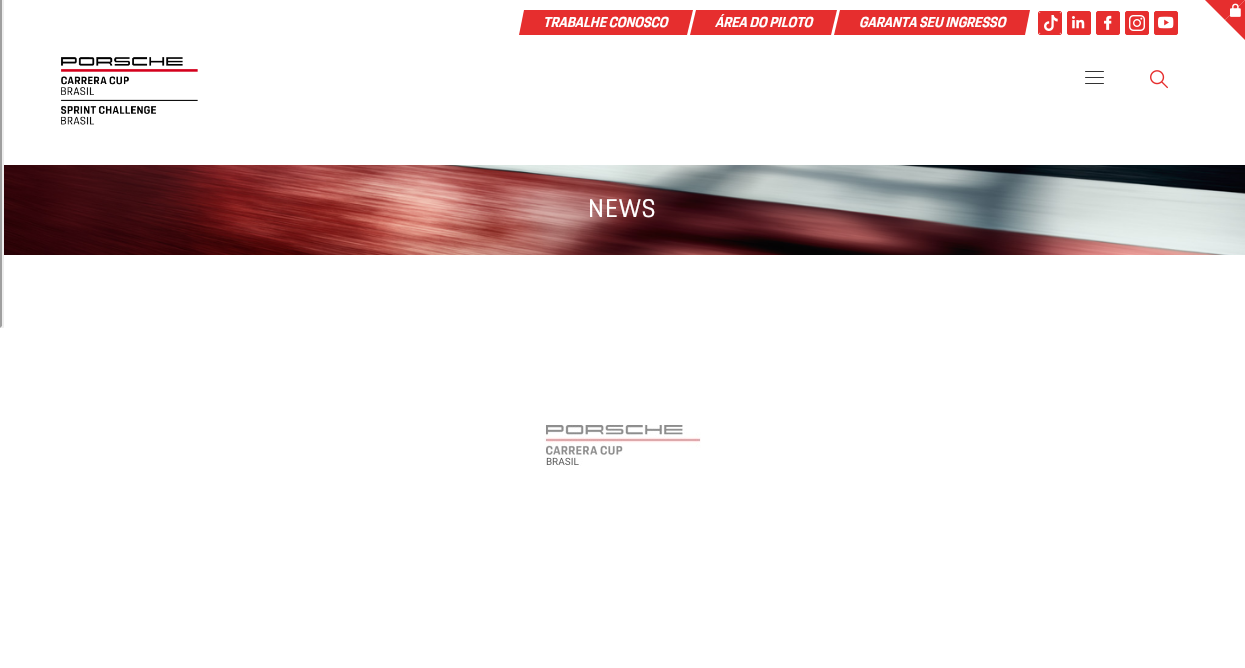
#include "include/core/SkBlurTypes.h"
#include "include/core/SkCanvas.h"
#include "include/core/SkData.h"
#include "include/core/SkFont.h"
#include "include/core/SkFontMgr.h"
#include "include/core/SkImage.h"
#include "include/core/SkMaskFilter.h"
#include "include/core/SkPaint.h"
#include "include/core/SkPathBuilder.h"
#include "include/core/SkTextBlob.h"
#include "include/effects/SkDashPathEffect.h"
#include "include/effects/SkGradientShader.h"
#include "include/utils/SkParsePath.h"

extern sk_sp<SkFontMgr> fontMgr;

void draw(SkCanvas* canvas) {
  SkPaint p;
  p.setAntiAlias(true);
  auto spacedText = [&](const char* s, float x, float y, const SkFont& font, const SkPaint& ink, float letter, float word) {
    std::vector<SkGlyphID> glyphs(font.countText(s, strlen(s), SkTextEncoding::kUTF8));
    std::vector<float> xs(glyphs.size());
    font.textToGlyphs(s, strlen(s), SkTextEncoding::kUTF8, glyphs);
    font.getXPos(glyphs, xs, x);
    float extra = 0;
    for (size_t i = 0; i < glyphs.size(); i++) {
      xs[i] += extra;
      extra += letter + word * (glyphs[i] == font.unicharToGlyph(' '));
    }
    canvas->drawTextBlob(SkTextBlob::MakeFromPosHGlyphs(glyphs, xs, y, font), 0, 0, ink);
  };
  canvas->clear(SK_ColorWHITE);
  p.setColor(SkColorSetRGB(238, 238, 238));
  canvas->drawPath(SkPathBuilder().moveTo(4, -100).lineTo(4, 328).lineTo(2, 326).lineTo(2, -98).close().detach(), p);
  canvas->drawPath(SkPathBuilder().moveTo(4, 328).lineTo(0, 328).lineTo(2, 326).close().detach(), p);
  p.setColor(SkColorSetRGB(159, 159, 159));
  canvas->drawPath(SkPathBuilder().moveTo(0, 328).lineTo(0, -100).lineTo(2, -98).lineTo(2, 326).close().detach(), p);
  p.setColor(SkColorSetRGB(230, 46, 46));
  canvas->drawPath(SkPathBuilder().moveTo(524, 10).lineTo(693, 10).lineTo(687, 35).lineTo(519, 35).close().detach(), p);
  canvas->drawPath(SkPathBuilder().moveTo(696, 10).lineTo(837, 10).lineTo(831, 35).lineTo(690, 35).close().detach(), p);
  canvas->drawPath(SkPathBuilder().moveTo(840, 10).lineTo(1030, 10).lineTo(1025, 35).lineTo(834, 35).close().detach(), p);
  p.setStyle(SkPaint::kStroke_Style);
  p.setStrokeWidth(1);
  canvas->drawRoundRect(SkRect::MakeLTRB(1038.5f, 11.5f, 1061.5f, 34.5f), 1.5f, 1.5f, p);
  canvas->drawImageRect(SkImages::DeferredFromEncodedData(SkData::MakeFromFileName("images/1.png")), SkRect::MakeLTRB(1039, 12, 1061, 34), SkSamplingOptions());
  p.setStyle(SkPaint::kFill_Style);
  canvas->drawRoundRect(SkRect::MakeLTRB(1067.5f, 11.5f, 1090.5f, 34.5f), 1.5f, 1.5f, p);
  p.setStyle(SkPaint::kStroke_Style);
  canvas->drawRoundRect(SkRect::MakeLTRB(1067.5f, 11.5f, 1090.5f, 34.5f), 1.5f, 1.5f, p);
  canvas->drawImageRect(SkImages::DeferredFromEncodedData(SkData::MakeFromFileName("images/2.png")), SkRect::MakeLTRB(1072, 16, 1085, 29), SkSamplingOptions());
  p.setStyle(SkPaint::kFill_Style);
  canvas->drawRoundRect(SkRect::MakeLTRB(1096.5f, 11.5f, 1119.5f, 34.5f), 1.5f, 1.5f, p);
  p.setStyle(SkPaint::kStroke_Style);
  canvas->drawRoundRect(SkRect::MakeLTRB(1096.5f, 11.5f, 1119.5f, 34.5f), 1.5f, 1.5f, p);
  canvas->drawImageRect(SkImages::DeferredFromEncodedData(SkData::MakeFromFileName("images/3.png")), SkRect::MakeLTRB(1104, 15, 1112, 30), SkSamplingOptions());
  p.setStyle(SkPaint::kFill_Style);
  canvas->drawRoundRect(SkRect::MakeLTRB(1125.5f, 11.5f, 1148.5f, 34.5f), 1.5f, 1.5f, p);
  p.setStyle(SkPaint::kStroke_Style);
  canvas->drawRoundRect(SkRect::MakeLTRB(1125.5f, 11.5f, 1148.5f, 34.5f), 1.5f, 1.5f, p);
  canvas->drawImageRect(SkImages::DeferredFromEncodedData(SkData::MakeFromFileName("images/4.png")), SkRect::MakeLTRB(1129, 15, 1145, 31), SkSamplingOptions());
  p.setStyle(SkPaint::kFill_Style);
  canvas->drawRoundRect(SkRect::MakeLTRB(1154.5f, 11.5f, 1177.5f, 34.5f), 1.5f, 1.5f, p);
  p.setStyle(SkPaint::kStroke_Style);
  canvas->drawRoundRect(SkRect::MakeLTRB(1154.5f, 11.5f, 1177.5f, 34.5f), 1.5f, 1.5f, p);
  canvas->drawImageRect(SkImages::DeferredFromEncodedData(SkData::MakeFromFileName("images/5.png")), SkRect::MakeLTRB(1158, 16, 1174, 29), SkSamplingOptions());
  p.setStyle(SkPaint::kFill_Style);
  canvas->drawPath(SkPathBuilder().moveTo(1205, 0).lineTo(1245, 0).lineTo(1225, 20).close().detach(), p);
  canvas->drawPath(SkPathBuilder().moveTo(1245, 0).lineTo(1245, 40).lineTo(1225, 20).close().detach(), p);
  canvas->drawImageRect(SkImages::DeferredFromEncodedData(SkData::MakeFromFileName("images/6.png")), SkRect::MakeLTRB(1230, 3, 1241, 17), SkSamplingOptions());
  canvas->drawImageRect(SkImages::DeferredFromEncodedData(SkData::MakeFromFileName("images/7.png")), SkRect::MakeLTRB(61, 57, 198, 125), SkSamplingOptions());
  p.setColor(SkColorSetRGB(51, 51, 51));
  canvas->drawRoundRect(SkRect::MakeLTRB(1085, 77, 1104, 78), 0.5f, 0.5f, p);
  canvas->drawRoundRect(SkRect::MakeLTRB(1085, 71, 1104, 72), 0.5f, 0.5f, p);
  canvas->drawRoundRect(SkRect::MakeLTRB(1085, 83, 1104, 84), 0.5f, 0.5f, p);
  canvas->drawImageRect(SkImages::DeferredFromEncodedData(SkData::MakeFromFileName("images/8.png")), SkRect::MakeLTRB(1150, 70, 1168, 89), SkSamplingOptions());
  canvas->drawImageRect(SkImages::DeferredFromEncodedData(SkData::MakeFromFileName("images/9.png")), SkRect::MakeLTRB(4, 165, 1245, 255), SkSamplingOptions());
  canvas->drawImageRect(SkImages::DeferredFromEncodedData(SkData::MakeFromFileName("images/10.png")), SkRect::MakeLTRB(544, 424, 701, 466), SkSamplingOptions());
  SkFont font1(fontMgr->matchFamilyStyle("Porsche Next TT", SkFontStyle::BoldItalic()), 14);
  font1.setSubpixel(true);
  p.setColor(SK_ColorWHITE);
  canvas->drawString("TRABALHE CONOSCO", 543, 27, font1, p);
  canvas->drawString("ÁREA DO PILOTO", 715, 27, font1, p);
  canvas->drawString("GARANTA SEU INGRESSO", 859, 27, font1, p);
  SkFont font2(fontMgr->matchFamilyStyle("Porsche Next TT", SkFontStyle::Normal()), 25);
  font2.setSubpixel(true);
  spacedText("NEWS", 588, 217, font2, p, 1, 0);
}
